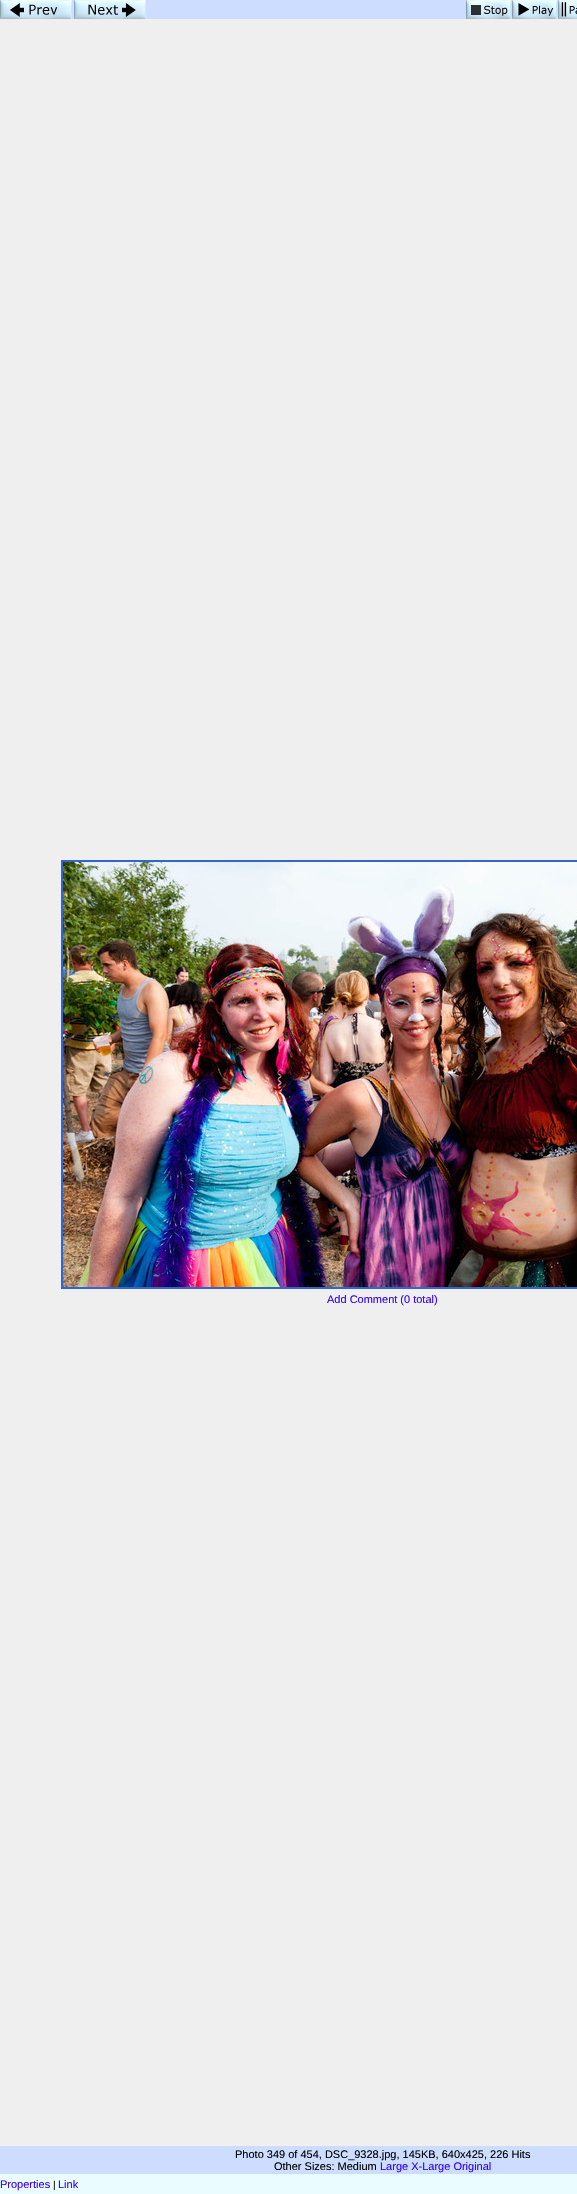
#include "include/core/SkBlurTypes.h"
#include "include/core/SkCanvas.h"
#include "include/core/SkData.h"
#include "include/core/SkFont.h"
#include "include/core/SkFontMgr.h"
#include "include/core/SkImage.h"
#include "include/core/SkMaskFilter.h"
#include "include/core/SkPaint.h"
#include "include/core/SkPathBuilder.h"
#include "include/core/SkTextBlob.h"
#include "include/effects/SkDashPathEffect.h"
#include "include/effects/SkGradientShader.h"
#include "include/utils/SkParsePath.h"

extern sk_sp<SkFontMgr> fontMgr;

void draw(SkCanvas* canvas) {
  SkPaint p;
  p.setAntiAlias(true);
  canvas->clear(SkColorSetRGB(204, 221, 255));
  canvas->drawImageRect(SkImages::DeferredFromEncodedData(SkData::MakeFromFileName("images/1.png")), SkRect::MakeLTRB(0, 0, 72, 19), SkSamplingOptions());
  canvas->drawImageRect(SkImages::DeferredFromEncodedData(SkData::MakeFromFileName("images/2.png")), SkRect::MakeLTRB(74, 0, 146, 19), SkSamplingOptions());
  canvas->drawImageRect(SkImages::DeferredFromEncodedData(SkData::MakeFromFileName("images/3.png")), SkRect::MakeLTRB(466, 0, 511, 19), SkSamplingOptions());
  canvas->drawImageRect(SkImages::DeferredFromEncodedData(SkData::MakeFromFileName("images/4.png")), SkRect::MakeLTRB(512, 0, 557, 19), SkSamplingOptions());
  canvas->drawImageRect(SkImages::DeferredFromEncodedData(SkData::MakeFromFileName("images/5.png")), SkRect::MakeLTRB(558, 0, 577, 19), SkSamplingOptions());
  p.setColor(SkColorSetRGB(239, 239, 239));
  canvas->drawRect(SkRect::MakeLTRB(0, 19, 577, 2146), p);
  p.setStyle(SkPaint::kStroke_Style);
  p.setStrokeWidth(2);
  p.setColor(SkColorSetRGB(51, 102, 204));
  canvas->drawRect(SkRect::MakeLTRB(62, 861, 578, 1288), p);
  canvas->drawImageRect(SkImages::DeferredFromEncodedData(SkData::MakeFromFileName("images/6.png")), SkRect::MakeLTRB(63, 862, 577, 1287), SkSamplingOptions());
  p.setStyle(SkPaint::kFill_Style);
  p.setColor(SkColorSetRGB(234, 252, 255));
  canvas->drawRect(SkRect::MakeLTRB(0, 2174, 577, 2194), p);
  SkFont font1(fontMgr->matchFamilyStyle("Liberation Sans", SkFontStyle::Normal()), 11);
  font1.setSubpixel(true);
  p.setColor(SkColorSetRGB(51, 0, 255));
  canvas->drawString("Add Comment (0 total)", 327, 1303, font1, p);
  p.setColor(SK_ColorBLACK);
  canvas->drawString("Photo 349 of 454, DSC_9328.jpg, 145KB, 640x425, 226 Hits", 235, 2158, font1, p);
  canvas->drawString("Other Sizes: Medium", 274, 2170, font1, p);
  p.setColor(SkColorSetRGB(51, 0, 255));
  canvas->drawString("Large X-Large Original", 380, 2170, font1, p);
  canvas->drawString("Properties", 0, 2188, font1, p);
  SkFont font2(fontMgr->matchFamilyStyle("Liberation Sans", SkFontStyle::Normal()), 10);
  font2.setSubpixel(true);
  p.setColor(SK_ColorBLACK);
  canvas->drawString("|", 53, 2188, font2, p);
  p.setColor(SkColorSetRGB(51, 0, 255));
  canvas->drawString("Link", 58, 2188, font1, p);
}
